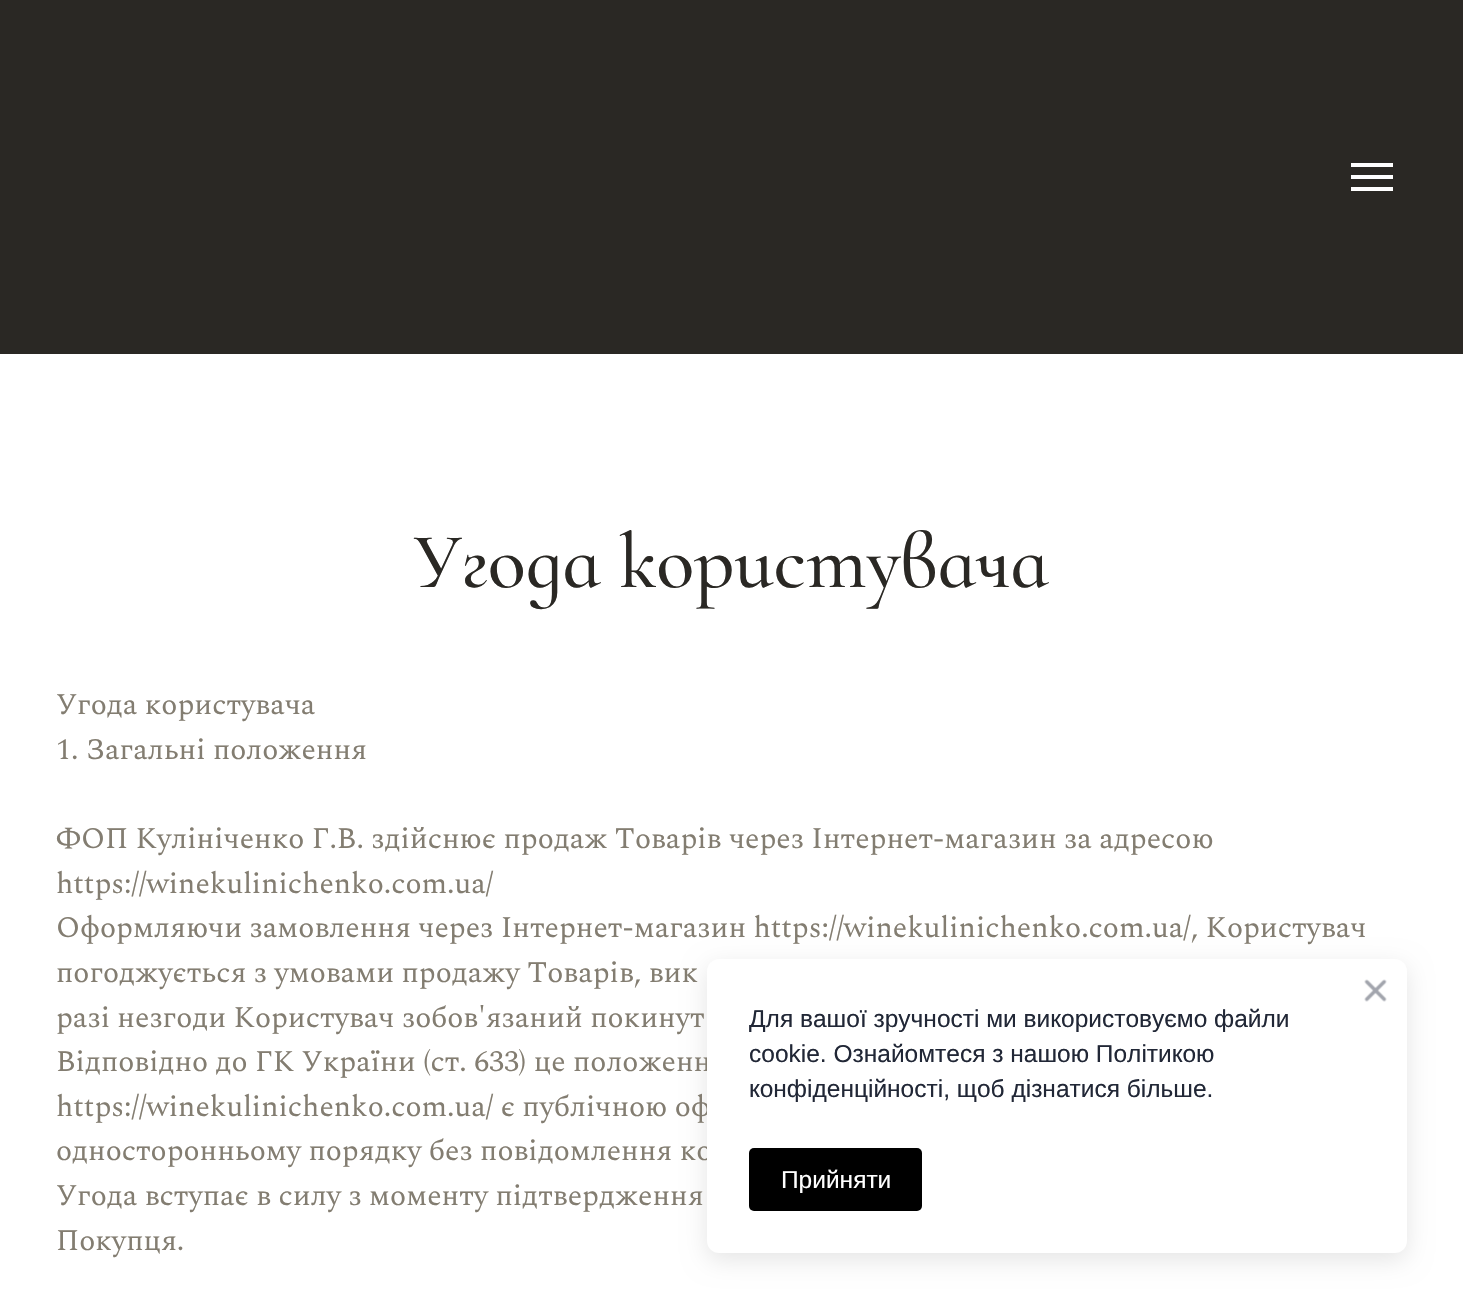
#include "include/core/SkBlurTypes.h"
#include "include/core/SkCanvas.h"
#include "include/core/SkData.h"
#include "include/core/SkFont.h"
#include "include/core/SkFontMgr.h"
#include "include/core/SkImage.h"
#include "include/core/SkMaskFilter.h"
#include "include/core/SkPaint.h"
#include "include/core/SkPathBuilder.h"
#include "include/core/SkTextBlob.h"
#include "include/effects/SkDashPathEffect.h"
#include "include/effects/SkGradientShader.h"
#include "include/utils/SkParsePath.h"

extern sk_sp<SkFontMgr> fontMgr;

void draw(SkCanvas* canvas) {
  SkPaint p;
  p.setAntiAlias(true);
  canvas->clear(SK_ColorWHITE);
  p.setColor(SkColorSetRGB(42, 40, 36));
  canvas->drawRect(SkRect::MakeLTRB(0, 0, 1463, 354), p);
  p.setColor(SK_ColorWHITE);
  canvas->drawRect(SkRect::MakeLTRB(1351, 163, 1393, 167), p);
  canvas->drawRect(SkRect::MakeLTRB(1351, 175, 1393, 179), p);
  canvas->drawRect(SkRect::MakeLTRB(1351, 187, 1393, 191), p);
  p.setColor(SkColorSetARGB(26, 0, 0, 0));
  p.setMaskFilter(SkMaskFilter::MakeBlur(kNormal_SkBlurStyle, 12));
  canvas->drawRoundRect(SkRect::MakeLTRB(707, 966, 1407, 1260), 12, 12, p);
  p.setMaskFilter(nullptr);
  SkFont font1(fontMgr->matchFamilyStyle("Cormorant Infant", SkFontStyle(500, SkFontStyle::kNormal_Width, SkFontStyle::kUpright_Slant)), 78.75f);
  font1.setSubpixel(true);
  p.setColor(SkColorSetRGB(42, 40, 36));
  canvas->drawString("Угода користувача", 413, 587, font1, p);
  SkFont font2(fontMgr->matchFamilyStyle("Spectral", SkFontStyle::Normal()), 29.75f);
  font2.setSubpixel(true);
  p.setColor(SkColorSetRGB(131, 125, 113));
  canvas->drawString("Угода користувача", 56, 714, font2, p);
  canvas->drawString("1. Загальні положення", 56, 759, font2, p);
  canvas->drawString("ФОП Кулініченко Г.В. здійснює продаж Товарів через Інтернет-магазин за адресою", 56, 848, font2, p);
  canvas->drawString("https://winekulinichenko.com.ua/", 56, 893, font2, p);
  canvas->drawString("Оформляючи замовлення через Інтернет-магазин https://winekulinichenko.com.ua/, Користувач", 56, 937, font2, p);
  canvas->drawString("погоджується з умовами продажу Товарів, вик", 56, 982, font2, p);
  canvas->drawString("разі незгоди Користувач зобов'язаний покинут", 56, 1027, font2, p);
  canvas->drawString("Відповідно до ГК України (ст. 633) це положенн", 56, 1071, font2, p);
  canvas->drawString("https://winekulinichenko.com.ua/ є публічною оф", 56, 1116, font2, p);
  canvas->drawString("односторонньому порядку без повідомлення ко", 56, 1160, font2, p);
  canvas->drawString("Угода вступає в силу з моменту підтвердження", 56, 1205, font2, p);
  canvas->drawString("Покупця.", 56, 1250, font2, p);
  p.setColor(SK_ColorWHITE);
  canvas->drawRoundRect(SkRect::MakeLTRB(707, 959, 1407, 1253), 12, 12, p);
  canvas->drawImageRect(SkImages::DeferredFromEncodedData(SkData::MakeFromFileName("images/1.png")), SkRect::MakeLTRB(1364, 979, 1387, 1002), SkSamplingOptions());
  SkFont font3(fontMgr->matchFamilyStyle("Liberation Sans", SkFontStyle::Normal()), 24.5f);
  font3.setSubpixel(true);
  p.setColor(SkColorSetRGB(33, 39, 54));
  canvas->drawString("Для вашої зручності ми використовуємо файли", 749, 1027, font3, p);
  canvas->drawString("cookie. Ознайомтеся з нашою Політикою", 749, 1062, font3, p);
  canvas->drawString("конфіденційності, щоб дізнатися більше.", 749, 1097, font3, p);
  p.setColor(SK_ColorBLACK);
  canvas->drawRoundRect(SkRect::MakeLTRB(749, 1148, 922, 1211), 5, 5, p);
  p.setColor(SK_ColorWHITE);
  canvas->drawString("Прийняти", 781, 1188, font3, p);
}
